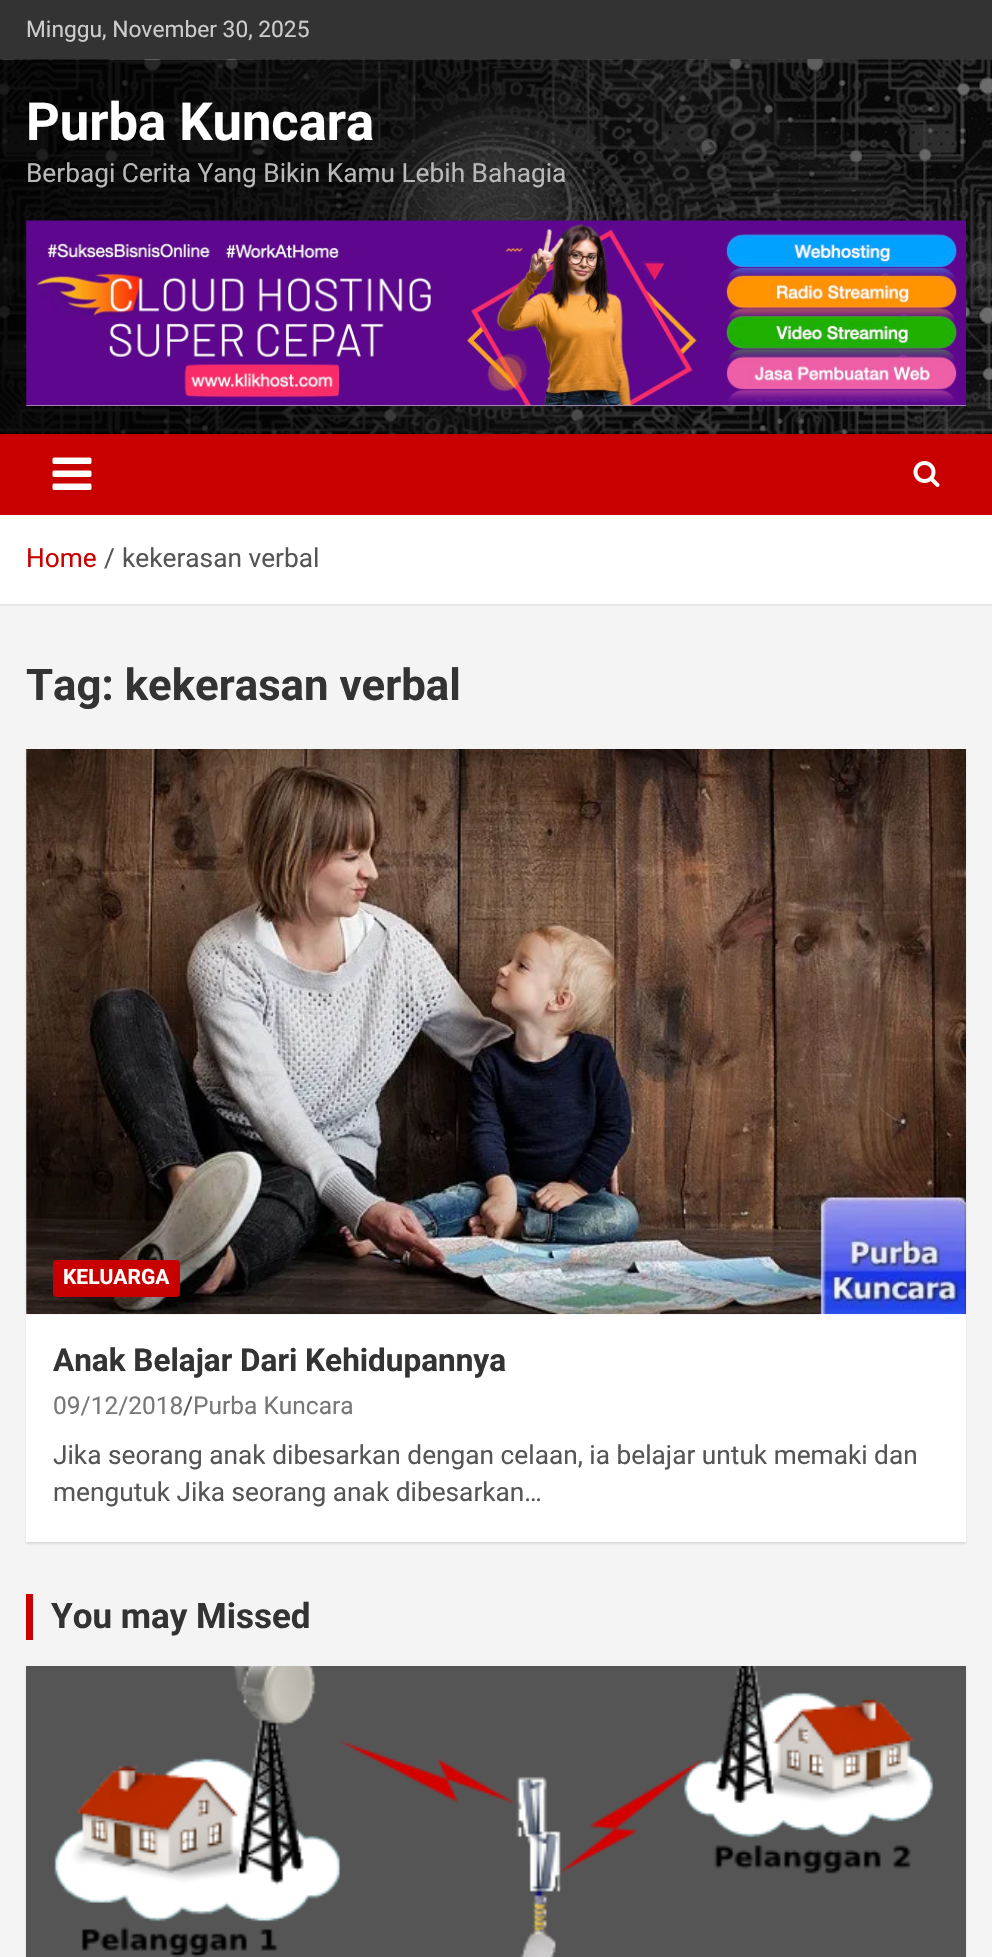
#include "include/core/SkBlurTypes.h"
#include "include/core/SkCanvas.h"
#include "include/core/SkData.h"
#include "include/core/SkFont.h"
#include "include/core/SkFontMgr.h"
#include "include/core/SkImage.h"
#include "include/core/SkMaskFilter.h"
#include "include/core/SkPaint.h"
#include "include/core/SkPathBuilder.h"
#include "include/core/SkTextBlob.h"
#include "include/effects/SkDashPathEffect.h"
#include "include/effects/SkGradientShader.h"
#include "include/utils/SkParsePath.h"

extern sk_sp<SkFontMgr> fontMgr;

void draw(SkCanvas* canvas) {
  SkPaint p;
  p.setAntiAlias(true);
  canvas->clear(SkColorSetRGB(244, 244, 244));
  p.setColor(SkColorSetRGB(51, 51, 51));
  canvas->drawRect(SkRect::MakeLTRB(0, 0, 992, 60), p);
  canvas->drawImageRect(SkImages::DeferredFromEncodedData(SkData::MakeFromFileName("images/1.png")), SkRect::MakeLTRB(0, 59, 992, 434), SkSamplingOptions());
  canvas->drawImageRect(SkImages::DeferredFromEncodedData(SkData::MakeFromFileName("images/2.png")), SkRect::MakeLTRB(26, 220, 966, 406), SkSamplingOptions());
  p.setColor(SkColorSetRGB(200, 0, 0));
  canvas->drawRect(SkRect::MakeLTRB(0, 434, 992, 515), p);
  canvas->drawImageRect(SkImages::DeferredFromEncodedData(SkData::MakeFromFileName("images/3.png")), SkRect::MakeLTRB(52, 457, 92, 490), SkSamplingOptions());
  canvas->drawImageRect(SkImages::DeferredFromEncodedData(SkData::MakeFromFileName("images/4.png")), SkRect::MakeLTRB(913, 461, 940, 487), SkSamplingOptions());
  p.setColor(SK_ColorWHITE);
  canvas->drawRect(SkRect::MakeLTRB(0, 515, 992, 604), p);
  p.setColor(SkColorSetRGB(230, 230, 230));
  canvas->drawRect(SkRect::MakeLTRB(0, 604, 992, 606), p);
  p.setColor(SkColorSetARGB(26, 0, 0, 0));
  p.setMaskFilter(SkMaskFilter::MakeBlur(kNormal_SkBlurStyle, 1));
  canvas->drawRect(SkRect::MakeLTRB(26, 751, 966, 1544), p);
  p.setMaskFilter(nullptr);
  p.setColor(SK_ColorWHITE);
  canvas->drawRect(SkRect::MakeLTRB(26, 749, 966, 1542), p);
  canvas->drawImageRect(SkImages::DeferredFromEncodedData(SkData::MakeFromFileName("images/5.png")), SkRect::MakeLTRB(26, 749, 966, 1315), SkSamplingOptions());
  p.setColor(SkColorSetRGB(200, 0, 0));
  canvas->drawRoundRect(SkRect::MakeLTRB(53, 1260, 180, 1297), 4, 4, p);
  canvas->drawRect(SkRect::MakeLTRB(26, 1594, 33, 1640), p);
  p.setColor(SkColorSetARGB(26, 0, 0, 0));
  p.setMaskFilter(SkMaskFilter::MakeBlur(kNormal_SkBlurStyle, 1));
  canvas->drawRect(SkRect::MakeLTRB(26, 1668, 966, 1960), p);
  p.setMaskFilter(nullptr);
  p.setColor(SkColorSetRGB(85, 85, 85));
  canvas->drawRect(SkRect::MakeLTRB(26, 1666, 966, 1957), p);
  canvas->drawImageRect(SkImages::DeferredFromEncodedData(SkData::MakeFromFileName("images/6.png")), SkRect::MakeLTRB(54, 1666, 934, 1957), SkSamplingOptions());
  SkFont font1(fontMgr->matchFamilyStyle("Roboto", SkFontStyle::Normal()), 22.75f);
  font1.setSubpixel(true);
  p.setColor(SkColorSetRGB(204, 204, 204));
  canvas->drawString("Minggu, November 30, 2025", 26, 37, font1, p);
  SkFont font2(fontMgr->matchFamilyStyle("Roboto", SkFontStyle::Bold()), 52.5f);
  font2.setSubpixel(true);
  p.setColor(SK_ColorWHITE);
  canvas->drawString("Purba Kuncara", 26, 140, font2, p);
  SkFont font3(fontMgr->matchFamilyStyle("Roboto", SkFontStyle::Normal()), 26.25f);
  font3.setSubpixel(true);
  p.setColor(SkColorSetRGB(185, 185, 185));
  canvas->drawString("Berbagi Cerita Yang Bikin Kamu Lebih Bahagia", 26, 182, font3, p);
  p.setColor(SkColorSetRGB(200, 0, 0));
  canvas->drawString("Home", 26, 567, font3, p);
  p.setColor(SkColorSetRGB(85, 85, 85));
  canvas->drawString("/", 104, 567, font3, p);
  canvas->drawString("kekerasan verbal", 122, 567, font3, p);
  SkFont font4(fontMgr->matchFamilyStyle("Roboto", SkFontStyle::Bold()), 43.75f);
  font4.setSubpixel(true);
  p.setColor(SkColorSetRGB(51, 51, 51));
  canvas->drawString("Tag: kekerasan verbal", 26, 700, font4, p);
  SkFont font5(fontMgr->matchFamilyStyle("Roboto", SkFontStyle::Bold()), 21);
  font5.setSubpixel(true);
  p.setColor(SK_ColorWHITE);
  canvas->drawString("KELUARGA", 63, 1284, font5, p);
  SkFont font6(fontMgr->matchFamilyStyle("Roboto", SkFontStyle::Bold()), 31.5f);
  font6.setSubpixel(true);
  p.setColor(SkColorSetRGB(51, 51, 51));
  canvas->drawString("Anak Belajar Dari Kehidupannya", 53, 1371, font6, p);
  SkFont font7(fontMgr->matchFamilyStyle("Roboto", SkFontStyle::Normal()), 24.5f);
  font7.setSubpixel(true);
  p.setColor(SkColorSetRGB(119, 119, 119));
  canvas->drawString("09/12/2018", 53, 1414, font7, p);
  p.setColor(SkColorSetRGB(85, 85, 85));
  canvas->drawString("/", 183, 1414, font7, p);
  p.setColor(SkColorSetRGB(119, 119, 119));
  canvas->drawString("Purba Kuncara", 193, 1414, font7, p);
  p.setColor(SkColorSetRGB(85, 85, 85));
  canvas->drawString("Jika seorang anak dibesarkan dengan celaan, ia belajar untuk memaki dan", 53, 1464, font3, p);
  canvas->drawString("mengutuk Jika seorang anak dibesarkan…", 53, 1501, font3, p);
  SkFont font8(fontMgr->matchFamilyStyle("Roboto", SkFontStyle::Bold()), 35);
  font8.setSubpixel(true);
  p.setColor(SkColorSetRGB(51, 51, 51));
  canvas->drawString("You may Missed", 51, 1628, font8, p);
}
